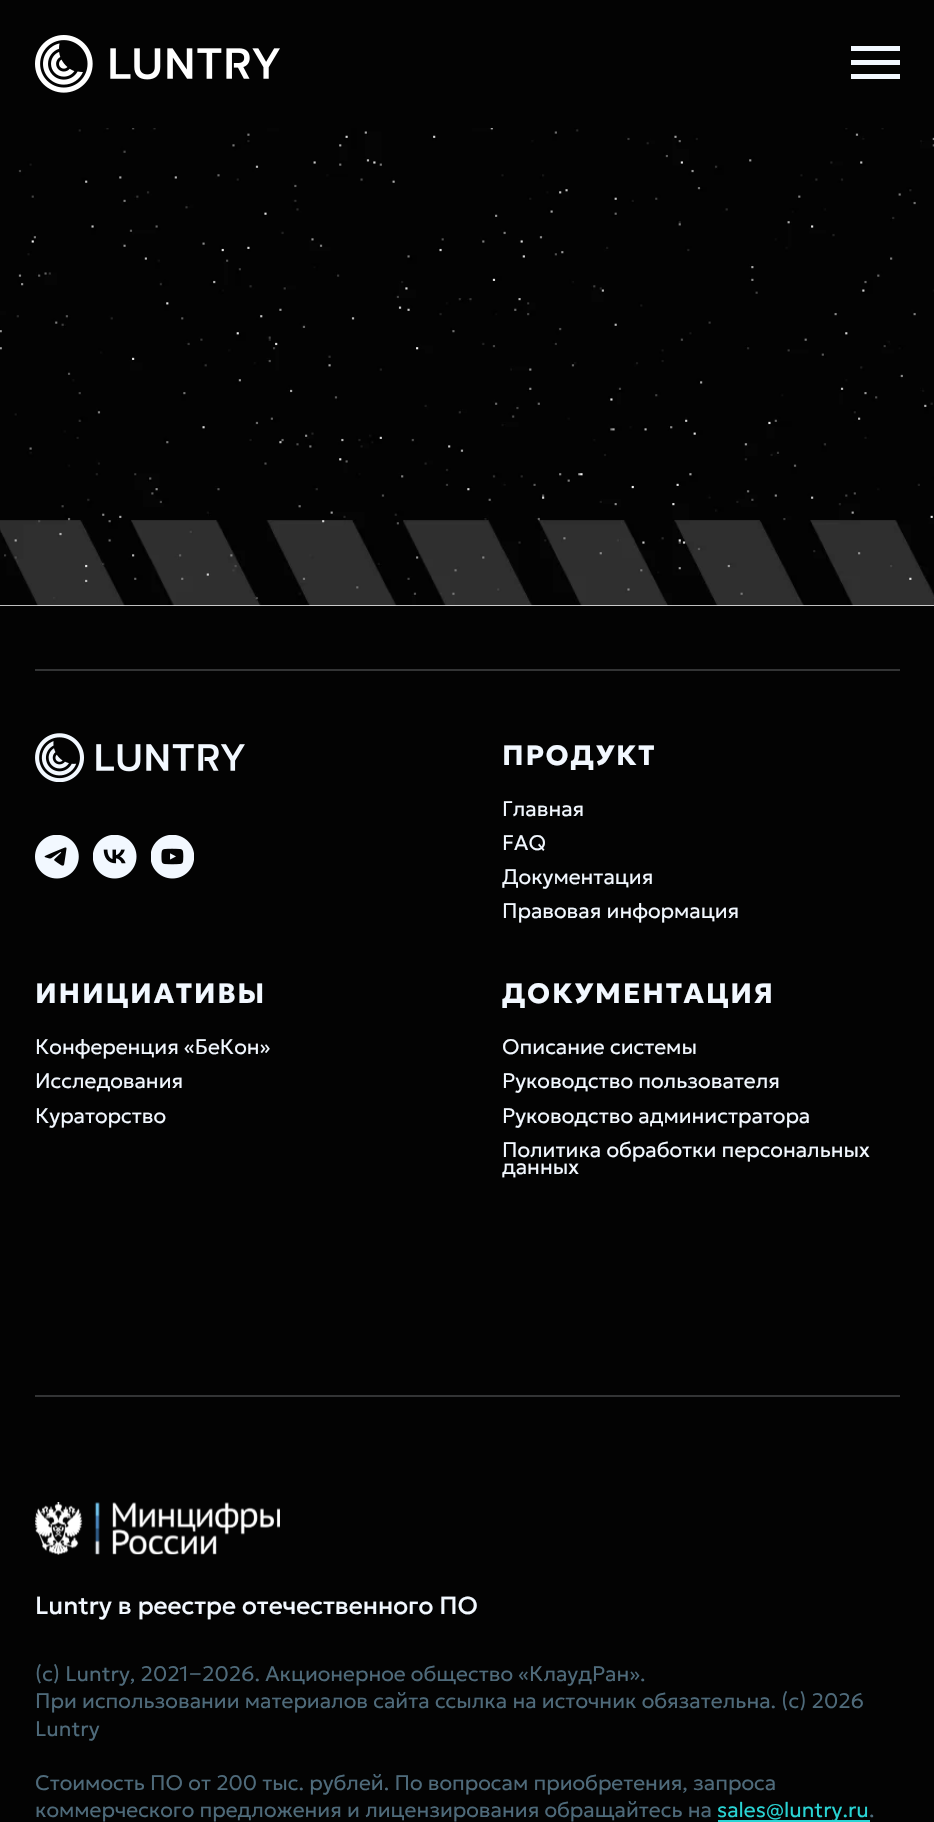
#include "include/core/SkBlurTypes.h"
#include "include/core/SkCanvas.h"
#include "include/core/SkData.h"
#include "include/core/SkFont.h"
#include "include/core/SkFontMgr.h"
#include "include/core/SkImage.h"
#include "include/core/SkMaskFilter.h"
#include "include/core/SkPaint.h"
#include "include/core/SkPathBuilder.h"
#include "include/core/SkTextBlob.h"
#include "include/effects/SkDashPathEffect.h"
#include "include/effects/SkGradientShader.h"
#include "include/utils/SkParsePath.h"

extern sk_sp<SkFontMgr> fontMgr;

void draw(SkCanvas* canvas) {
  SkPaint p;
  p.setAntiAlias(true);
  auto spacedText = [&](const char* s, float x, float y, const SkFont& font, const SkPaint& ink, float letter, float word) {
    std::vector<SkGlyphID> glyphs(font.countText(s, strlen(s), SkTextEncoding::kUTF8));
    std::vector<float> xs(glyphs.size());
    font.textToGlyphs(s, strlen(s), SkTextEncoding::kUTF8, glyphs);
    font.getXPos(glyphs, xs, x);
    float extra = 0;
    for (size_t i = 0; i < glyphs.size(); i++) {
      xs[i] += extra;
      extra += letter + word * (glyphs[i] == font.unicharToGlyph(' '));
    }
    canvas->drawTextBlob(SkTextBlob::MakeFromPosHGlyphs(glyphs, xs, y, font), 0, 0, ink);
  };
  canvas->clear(SkColorSetRGB(3, 3, 3));
  canvas->drawImageRect(SkImages::DeferredFromEncodedData(SkData::MakeFromFileName("images/1.png")), SkRect::MakeLTRB(35, 35, 280, 93), SkSamplingOptions());
  p.setColor(SkColorSetRGB(242, 248, 255));
  canvas->drawRect(SkRect::MakeLTRB(851, 46, 900, 51), p);
  canvas->drawRect(SkRect::MakeLTRB(851, 60, 900, 65), p);
  canvas->drawRect(SkRect::MakeLTRB(851, 74, 900, 79), p);
  p.setColor(SK_ColorWHITE);
  canvas->drawRect(SkRect::MakeLTRB(0, 605, 934, 606), p);
  canvas->drawImageRect(SkImages::DeferredFromEncodedData(SkData::MakeFromFileName("images/2.png")), SkRect::MakeLTRB(0, 128, 934, 606), SkSamplingOptions());
  p.setColor(SkColorSetRGB(51, 52, 53));
  canvas->drawRect(SkRect::MakeLTRB(35, 669, 900, 671), p);
  canvas->drawImageRect(SkImages::DeferredFromEncodedData(SkData::MakeFromFileName("images/3.png")), SkRect::MakeLTRB(35, 733, 245, 782), SkSamplingOptions());
  canvas->drawImageRect(SkImages::DeferredFromEncodedData(SkData::MakeFromFileName("images/4.png")), SkRect::MakeLTRB(35, 835, 79, 879), SkSamplingOptions());
  canvas->drawImageRect(SkImages::DeferredFromEncodedData(SkData::MakeFromFileName("images/5.png")), SkRect::MakeLTRB(93, 835, 137, 879), SkSamplingOptions());
  canvas->drawImageRect(SkImages::DeferredFromEncodedData(SkData::MakeFromFileName("images/6.png")), SkRect::MakeLTRB(151, 835, 194, 879), SkSamplingOptions());
  canvas->drawRect(SkRect::MakeLTRB(35, 1395, 900, 1397), p);
  canvas->drawImageRect(SkImages::DeferredFromEncodedData(SkData::MakeFromFileName("images/7.png")), SkRect::MakeLTRB(35, 1502, 280, 1555), SkSamplingOptions());
  p.setColor(SkColorSetRGB(41, 212, 212));
  canvas->drawRect(SkRect::MakeLTRB(718, 1820, 870, 1822), p);
  SkFont font1(fontMgr->matchFamilyStyle("Geologica", SkFontStyle::Bold()), 28);
  font1.setSubpixel(true);
  p.setColor(SkColorSetRGB(242, 248, 255));
  spacedText("ПРОДУКТ", 502, 765, font1, p, 1.75f, 0);
  SkFont font2(fontMgr->matchFamilyStyle("Geologica", SkFontStyle(300, SkFontStyle::kNormal_Width, SkFontStyle::kUpright_Slant)), 21);
  font2.setSubpixel(true);
  canvas->drawString("Главная", 502, 816, font2, p);
  canvas->drawString("FAQ", 502, 850, font2, p);
  canvas->drawString("Документация", 502, 884, font2, p);
  canvas->drawString("Правовая информация", 502, 918, font2, p);
  spacedText("ИНИЦИАТИВЫ", 35, 1003, font1, p, 1.75f, 0);
  canvas->drawString("Конференция «БеКон»", 35, 1054, font2, p);
  canvas->drawString("Исследования", 35, 1088, font2, p);
  canvas->drawString("Кураторство", 35, 1123, font2, p);
  spacedText("ДОКУМЕНТАЦИЯ", 502, 1003, font1, p, 1.75f, 0);
  canvas->drawString("Описание системы", 502, 1054, font2, p);
  canvas->drawString("Руководство пользователя", 502, 1088, font2, p);
  canvas->drawString("Руководство администратора", 502, 1123, font2, p);
  canvas->drawString("Политика обработки персональных", 502, 1157, font2, p);
  canvas->drawString("данных", 502, 1174, font2, p);
  SkFont font3(fontMgr->matchFamilyStyle("Geologica", SkFontStyle::Normal()), 24.5f);
  font3.setSubpixel(true);
  canvas->drawString("Luntry в реестре отечественного ПО", 35, 1614, font3, p);
  p.setColor(SkColorSetRGB(78, 106, 122));
  canvas->drawString("(c) Luntry, 2021−2026. Акционерное общество «КлаудРан».", 35, 1681, font2, p);
  canvas->drawString("При использовании материалов сайта ссылка на источник обязательна. (c) 2026", 35, 1708, font2, p);
  canvas->drawString("Luntry", 35, 1736, font2, p);
  canvas->drawString("Стоимость ПО от 200 тыс. рублей. По вопросам приобретения, запроса", 35, 1790, font2, p);
  canvas->drawString("коммерческого предложения и лицензирования обращайтесь на", 35, 1817, font2, p);
  p.setColor(SkColorSetRGB(41, 212, 212));
  canvas->drawString("sales@luntry.ru", 717, 1817, font2, p);
  p.setColor(SkColorSetRGB(78, 106, 122));
  canvas->drawString(".", 869, 1817, font2, p);
}
